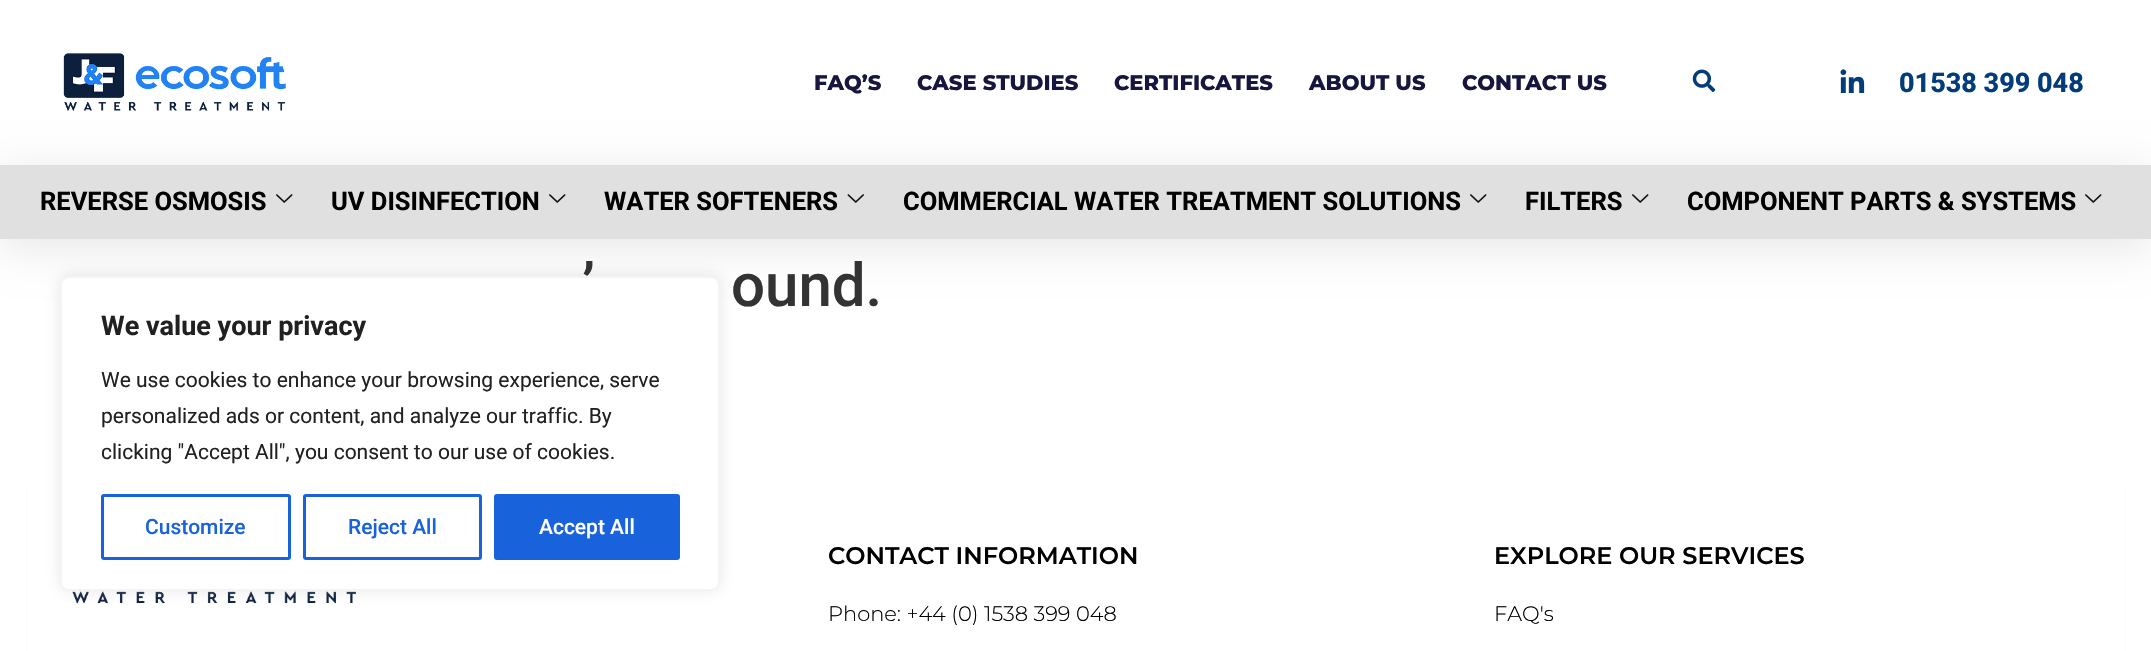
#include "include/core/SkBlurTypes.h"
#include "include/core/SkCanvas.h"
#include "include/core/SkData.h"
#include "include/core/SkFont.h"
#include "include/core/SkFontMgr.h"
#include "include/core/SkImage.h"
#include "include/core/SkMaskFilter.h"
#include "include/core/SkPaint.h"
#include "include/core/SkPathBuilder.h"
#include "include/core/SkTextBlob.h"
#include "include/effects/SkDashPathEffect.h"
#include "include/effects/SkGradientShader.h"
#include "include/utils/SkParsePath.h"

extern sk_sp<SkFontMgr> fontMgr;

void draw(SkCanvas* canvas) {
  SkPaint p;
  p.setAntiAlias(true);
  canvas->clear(SK_ColorWHITE);
  canvas->drawImageRect(SkImages::DeferredFromEncodedData(SkData::MakeFromFileName("images/1.png")), SkRect::MakeLTRB(63, 53, 286, 111), SkSamplingOptions());
  canvas->drawImageRect(SkImages::DeferredFromEncodedData(SkData::MakeFromFileName("images/2.png")), SkRect::MakeLTRB(1692, 69, 1716, 92), SkSamplingOptions());
  canvas->drawImageRect(SkImages::DeferredFromEncodedData(SkData::MakeFromFileName("images/3.png")), SkRect::MakeLTRB(1840, 69, 1865, 93), SkSamplingOptions());
  p.setColor(SkColorSetARGB(26, 0, 0, 0));
  p.setMaskFilter(SkMaskFilter::MakeBlur(kNormal_SkBlurStyle, 22.5f));
  canvas->drawRect(SkRect::MakeLTRB(0, 173, 2151, 246), p);
  p.setMaskFilter(nullptr);
  p.setColor(SkColorSetRGB(224, 224, 224));
  canvas->drawRect(SkRect::MakeLTRB(0, 165, 2151, 239), p);
  canvas->drawImageRect(SkImages::DeferredFromEncodedData(SkData::MakeFromFileName("images/4.png")), SkRect::MakeLTRB(276, 194, 293, 203), SkSamplingOptions());
  canvas->drawImageRect(SkImages::DeferredFromEncodedData(SkData::MakeFromFileName("images/4.png")), SkRect::MakeLTRB(549, 194, 566, 203), SkSamplingOptions());
  canvas->drawImageRect(SkImages::DeferredFromEncodedData(SkData::MakeFromFileName("images/5.png")), SkRect::MakeLTRB(847, 194, 864, 203), SkSamplingOptions());
  canvas->drawImageRect(SkImages::DeferredFromEncodedData(SkData::MakeFromFileName("images/4.png")), SkRect::MakeLTRB(1470, 194, 1487, 203), SkSamplingOptions());
  canvas->drawImageRect(SkImages::DeferredFromEncodedData(SkData::MakeFromFileName("images/4.png")), SkRect::MakeLTRB(1632, 194, 1649, 203), SkSamplingOptions());
  canvas->drawImageRect(SkImages::DeferredFromEncodedData(SkData::MakeFromFileName("images/4.png")), SkRect::MakeLTRB(2085, 194, 2102, 203), SkSamplingOptions());
  canvas->drawImageRect(SkImages::DeferredFromEncodedData(SkData::MakeFromFileName("images/6.png")), SkRect::MakeLTRB(72, 591, 356, 604), SkSamplingOptions());
  p.setColor(SkColorSetARGB(77, 172, 171, 171));
  p.setMaskFilter(SkMaskFilter::MakeBlur(kNormal_SkBlurStyle, 7.5f));
  canvas->drawRoundRect(SkRect::MakeLTRB(60, 275, 720, 590), 9, 9, p);
  p.setMaskFilter(nullptr);
  p.setColor(SK_ColorWHITE);
  canvas->drawRoundRect(SkRect::MakeLTRB(61, 277, 719, 590), 8, 8, p);
  p.setStyle(SkPaint::kStroke_Style);
  p.setStrokeWidth(2);
  p.setColor(SkColorSetRGB(244, 244, 244));
  canvas->drawRoundRect(SkRect::MakeLTRB(61, 277, 719, 590), 8, 8, p);
  p.setStrokeWidth(3);
  p.setColor(SkColorSetRGB(24, 99, 220));
  canvas->drawRoundRect(SkRect::MakeLTRB(102.5f, 495.5f, 289.5f, 558.5f), 1.5f, 1.5f, p);
  canvas->drawRoundRect(SkRect::MakeLTRB(304.5f, 495.5f, 480.5f, 558.5f), 1.5f, 1.5f, p);
  p.setStyle(SkPaint::kFill_Style);
  canvas->drawRoundRect(SkRect::MakeLTRB(495.5f, 495.5f, 678.5f, 558.5f), 1.5f, 1.5f, p);
  p.setStyle(SkPaint::kStroke_Style);
  canvas->drawRoundRect(SkRect::MakeLTRB(495.5f, 495.5f, 678.5f, 558.5f), 1.5f, 1.5f, p);
  p.setStyle(SkPaint::kFill_Style);
  p.setColor(SkColorSetRGB(255, 253, 252));
  canvas->drawRect(SkRect::MakeLTRB(2124, 485, 2126, 651), p);
  canvas->drawRect(SkRect::MakeLTRB(26, 485, 28, 651), p);
  SkFont font1(fontMgr->matchFamilyStyle("Montserrat", SkFontStyle(800, SkFontStyle::kNormal_Width, SkFontStyle::kUpright_Slant)), 21);
  font1.setSubpixel(true);
  p.setColor(SkColorSetRGB(22, 22, 63));
  canvas->drawString("FAQ’S", 814, 90, font1, p);
  canvas->drawString("CASE STUDIES", 917, 90, font1, p);
  canvas->drawString("CERTIFICATES", 1114, 90, font1, p);
  canvas->drawString("ABOUT US", 1309, 90, font1, p);
  canvas->drawString("CONTACT US", 1462, 90, font1, p);
  SkFont font2(fontMgr->matchFamilyStyle("Roboto", SkFontStyle(800, SkFontStyle::kNormal_Width, SkFontStyle::kUpright_Slant)), 27);
  font2.setSubpixel(true);
  p.setColor(SkColorSetRGB(3, 60, 123));
  canvas->drawString("01538 399 048", 1899, 92, font2, p);
  SkFont font3(fontMgr->matchFamilyStyle("Roboto", SkFontStyle::Bold()), 25.5f);
  font3.setSubpixel(true);
  p.setColor(SK_ColorBLACK);
  canvas->drawString("REVERSE OSMOSIS", 40, 210, font3, p);
  canvas->drawString("UV DISINFECTION", 331, 210, font3, p);
  canvas->drawString("WATER SOFTENERS", 604, 210, font3, p);
  canvas->drawString("COMMERCIAL WATER TREATMENT SOLUTIONS", 903, 210, font3, p);
  canvas->drawString("FILTERS", 1525, 210, font3, p);
  canvas->drawString("COMPONENT PARTS & SYSTEMS", 1687, 210, font3, p);
  SkFont font4(fontMgr->matchFamilyStyle("Roboto", SkFontStyle(500, SkFontStyle::kNormal_Width, SkFontStyle::kUpright_Slant)), 60);
  font4.setSubpixel(true);
  p.setColor(SkColorSetRGB(51, 51, 51));
  canvas->drawString("’", 582, 306, font4, p);
  canvas->drawString("ound.", 731, 306, font4, p);
  SkFont font5(fontMgr->matchFamilyStyle("Roboto", SkFontStyle::Bold()), 27);
  font5.setSubpixel(true);
  p.setColor(SkColorSetRGB(33, 33, 33));
  canvas->drawString("We value your privacy", 101, 335, font5, p);
  SkFont font6(fontMgr->matchFamilyStyle("Roboto", SkFontStyle::Normal()), 21);
  font6.setSubpixel(true);
  canvas->drawString("We use cookies to enhance your browsing experience, serve", 101, 387, font6, p);
  canvas->drawString("personalized ads or content, and analyze our traffic. By", 101, 423, font6, p);
  canvas->drawString("clicking \"Accept All\", you consent to our use of cookies.", 101, 459, font6, p);
  SkFont font7(fontMgr->matchFamilyStyle("Roboto", SkFontStyle(500, SkFontStyle::kNormal_Width, SkFontStyle::kUpright_Slant)), 21);
  font7.setSubpixel(true);
  p.setColor(SkColorSetRGB(24, 99, 220));
  canvas->drawString("Customize", 145, 534, font7, p);
  canvas->drawString("Reject All", 348, 534, font7, p);
  p.setColor(SK_ColorWHITE);
  canvas->drawString("Accept All", 539, 534, font7, p);
  SkFont font8(fontMgr->matchFamilyStyle("Montserrat", SkFontStyle(600, SkFontStyle::kNormal_Width, SkFontStyle::kUpright_Slant)), 24);
  font8.setSubpixel(true);
  p.setColor(SK_ColorBLACK);
  canvas->drawString("CONTACT INFORMATION", 828, 564, font8, p);
  SkFont font9(fontMgr->matchFamilyStyle("Montserrat", SkFontStyle(300, SkFontStyle::kNormal_Width, SkFontStyle::kUpright_Slant)), 21);
  font9.setSubpixel(true);
  canvas->drawString("Phone: +44 (0) 1538 399 048", 828, 621, font9, p);
  canvas->drawString("EXPLORE OUR SERVICES", 1494, 564, font8, p);
  canvas->drawString("FAQ's", 1494, 621, font9, p);
}
